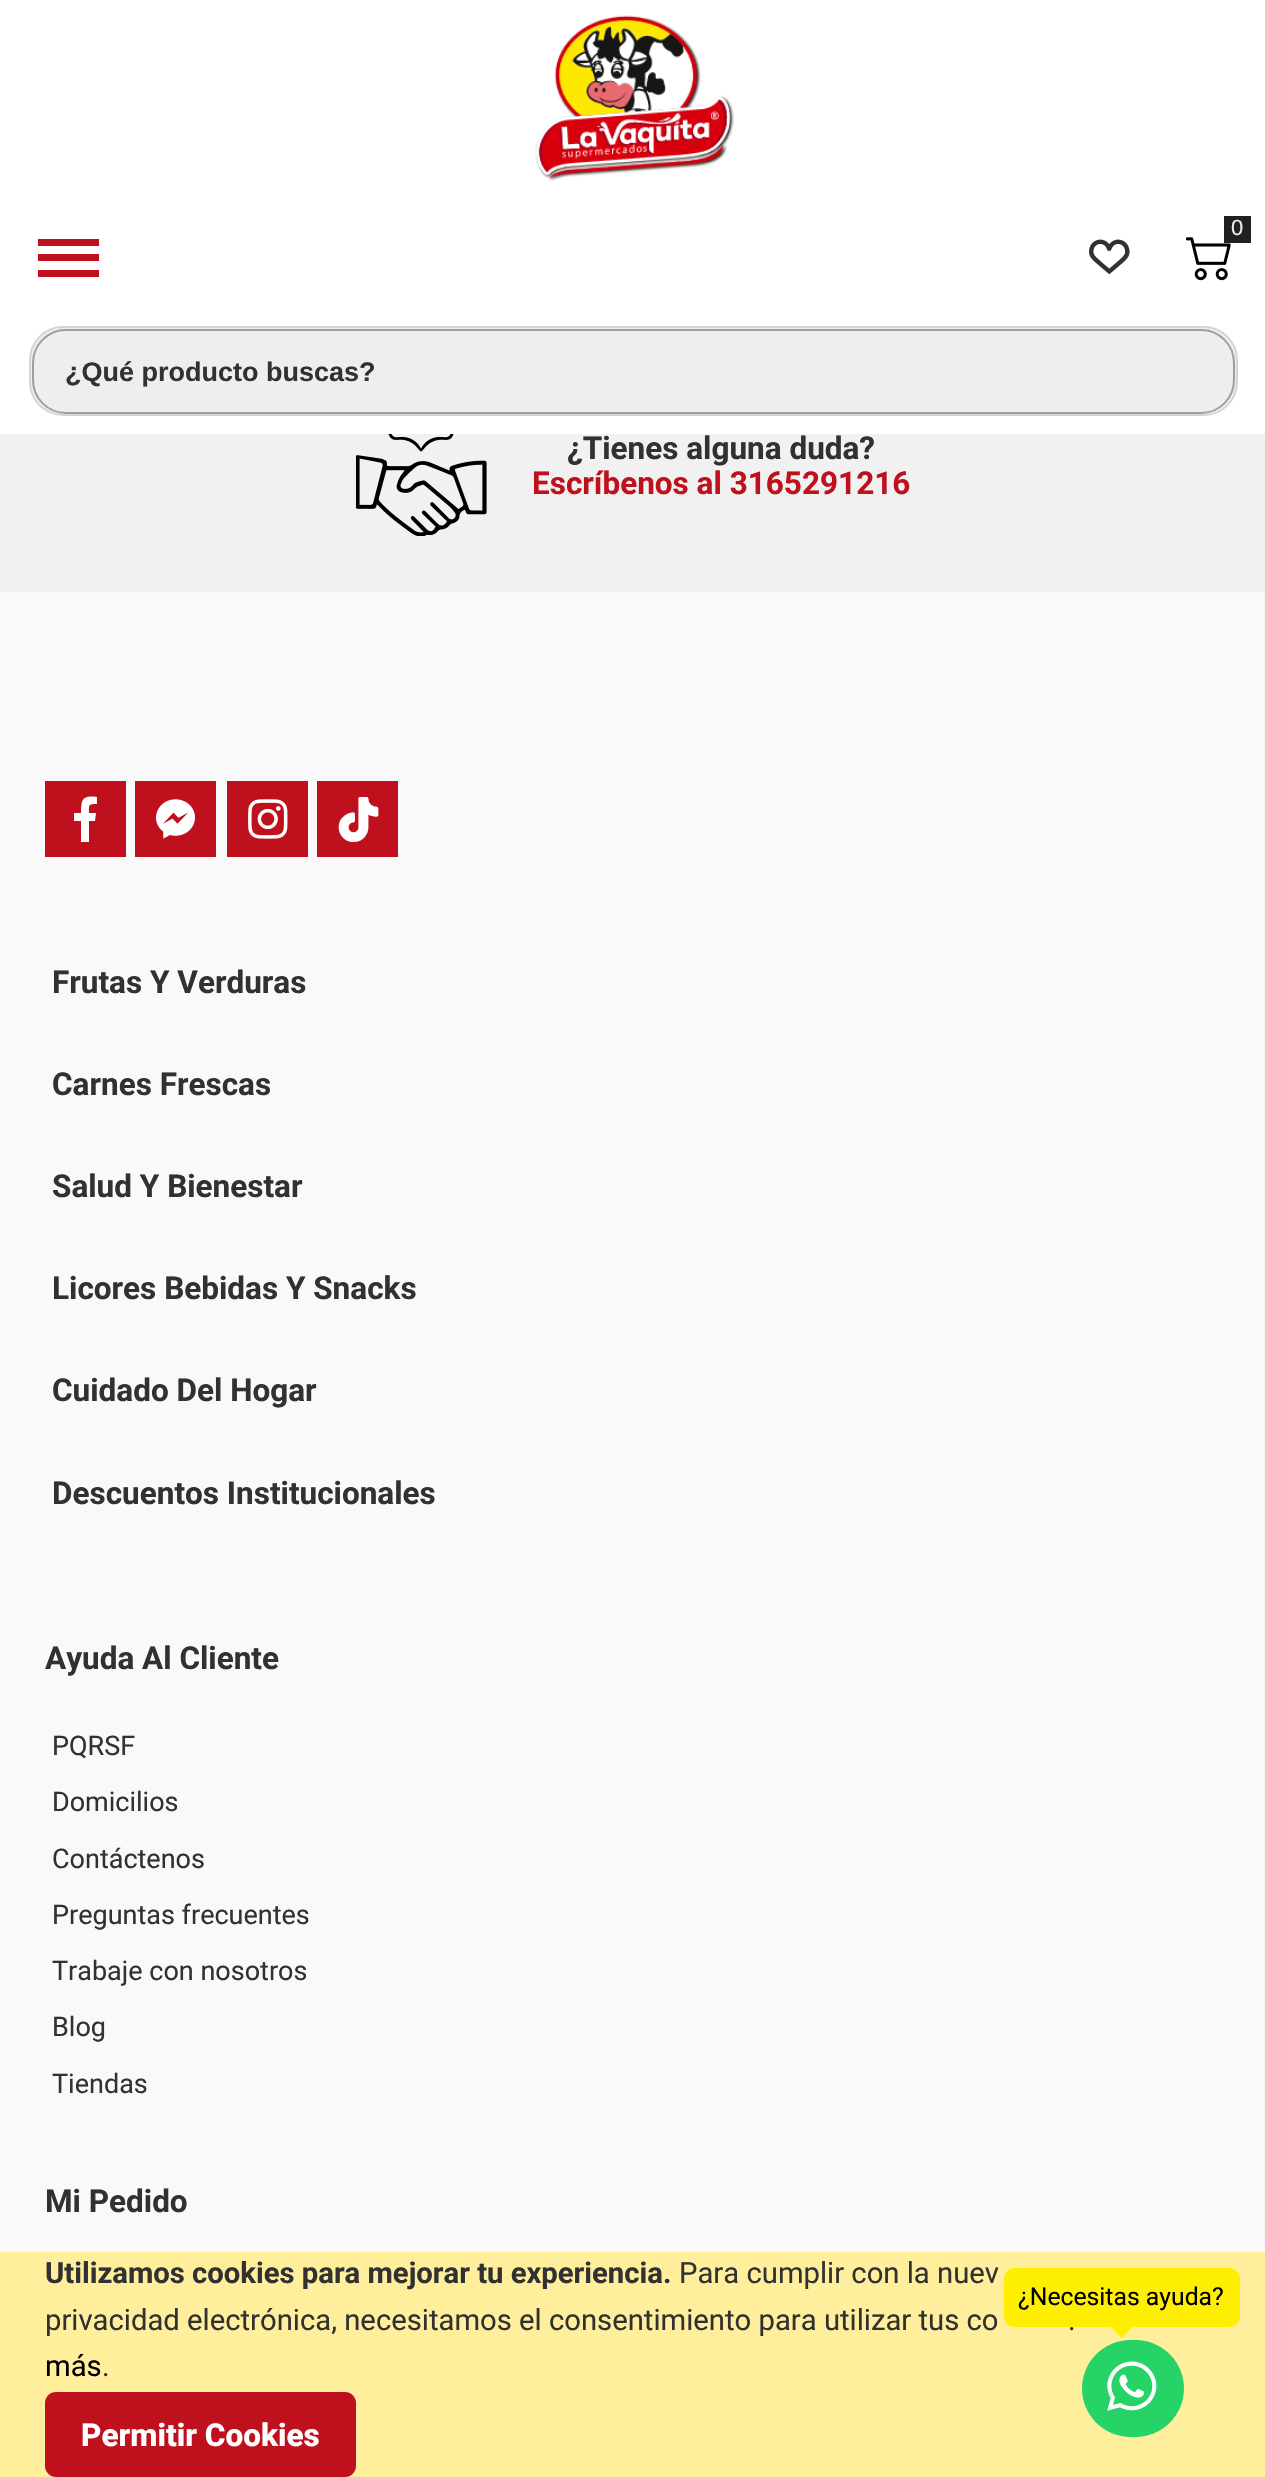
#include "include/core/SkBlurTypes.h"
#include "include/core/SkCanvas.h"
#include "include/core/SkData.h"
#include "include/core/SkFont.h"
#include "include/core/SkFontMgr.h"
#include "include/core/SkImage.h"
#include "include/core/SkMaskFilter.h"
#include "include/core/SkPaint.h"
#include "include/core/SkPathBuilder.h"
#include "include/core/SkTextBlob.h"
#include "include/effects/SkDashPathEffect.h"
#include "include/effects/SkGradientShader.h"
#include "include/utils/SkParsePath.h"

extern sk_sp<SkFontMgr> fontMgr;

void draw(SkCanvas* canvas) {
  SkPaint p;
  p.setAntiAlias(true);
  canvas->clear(SkColorSetRGB(241, 241, 241));
  p.setColor(SK_ColorWHITE);
  canvas->drawRect(SkRect::MakeLTRB(0, 0, 1265, 434), p);
  canvas->drawImageRect(SkImages::DeferredFromEncodedData(SkData::MakeFromFileName("images/1.png")), SkRect::MakeLTRB(535, 15, 735, 181), SkSamplingOptions());
  canvas->drawImageRect(SkImages::DeferredFromEncodedData(SkData::MakeFromFileName("images/2.png")), SkRect::MakeLTRB(1186, 237, 1231, 281), SkSamplingOptions());
  p.setColor(SkColorSetRGB(32, 32, 32));
  canvas->drawRect(SkRect::MakeLTRB(1224, 216, 1251, 243), p);
  canvas->drawImageRect(SkImages::DeferredFromEncodedData(SkData::MakeFromFileName("images/3.png")), SkRect::MakeLTRB(1089, 239, 1130, 275), SkSamplingOptions());
  p.setColor(SkColorSetRGB(191, 16, 30));
  canvas->drawRect(SkRect::MakeLTRB(38, 239, 99, 246), p);
  canvas->drawRect(SkRect::MakeLTRB(38, 254, 99, 261), p);
  canvas->drawRect(SkRect::MakeLTRB(38, 270, 99, 277), p);
  p.setColor(SkColorSetRGB(238, 238, 238));
  canvas->drawRoundRect(SkRect::MakeLTRB(30, 327, 1237, 415), 33, 33, p);
  p.setStyle(SkPaint::kStroke_Style);
  p.setStrokeWidth(2);
  p.setColor(SkColorSetRGB(213, 213, 213));
  canvas->drawRoundRect(SkRect::MakeLTRB(30, 327, 1237, 415), 33, 33, p);
  p.setColor(SkColorSetRGB(159, 159, 159));
  canvas->drawRoundRect(SkRect::MakeLTRB(33, 330, 1234, 413), 33, 33, p);
  canvas->drawImageRect(SkImages::DeferredFromEncodedData(SkData::MakeFromFileName("images/4.png")), SkRect::MakeLTRB(356, 434, 487, 536), SkSamplingOptions());
  p.setStyle(SkPaint::kFill_Style);
  p.setColor(SkColorSetRGB(249, 249, 249));
  canvas->drawRect(SkRect::MakeLTRB(0, 592, 1265, 2252), p);
  p.setColor(SkColorSetRGB(191, 16, 30));
  canvas->drawRect(SkRect::MakeLTRB(45, 781, 126, 857), p);
  p.setColor(SK_ColorWHITE);
  canvas->drawPath(SkPathBuilder().moveTo(89, 842).lineTo(89, 821).lineTo(95, 821).lineTo(96, 813).lineTo(89, 813).cubicTo(89, 805, 88, 804, 97, 804).lineTo(97, 797).cubicTo(82, 795, 81, 800, 81, 813).lineTo(74, 813).lineTo(74, 821).lineTo(81, 821).lineTo(81, 842).close().detach(), p);
  p.setColor(SkColorSetRGB(191, 16, 30));
  canvas->drawRect(SkRect::MakeLTRB(135, 781, 216, 857), p);
  canvas->drawImageRect(SkImages::DeferredFromEncodedData(SkData::MakeFromFileName("images/5.png")), SkRect::MakeLTRB(156, 799, 195, 839), SkSamplingOptions());
  canvas->drawRect(SkRect::MakeLTRB(227, 781, 308, 857), p);
  canvas->drawImageRect(SkImages::DeferredFromEncodedData(SkData::MakeFromFileName("images/6.png")), SkRect::MakeLTRB(248, 799, 288, 839), SkSamplingOptions());
  canvas->drawRect(SkRect::MakeLTRB(317, 781, 398, 857), p);
  p.setColor(SkColorSetRGB(255, 238, 156));
  canvas->drawRect(SkRect::MakeLTRB(0, 2252, 1265, 2477), p);
  p.setColor(SkColorSetRGB(254, 238, 0));
  canvas->drawRoundRect(SkRect::MakeLTRB(1004, 2268, 1240, 2327), 11, 11, p);
  canvas->drawPath(SkPathBuilder().moveTo(1110.5f, 2326.5f).lineTo(1133, 2326.5f).lineTo(1121.5f, 2338).close().detach(), p);
  p.setColor(SkColorSetRGB(37, 211, 102));
  canvas->drawRoundRect(SkRect::MakeLTRB(1082, 2340, 1184, 2437), 48.5f, 48.5f, p);
  canvas->drawImageRect(SkImages::DeferredFromEncodedData(SkData::MakeFromFileName("images/7.png")), SkRect::MakeLTRB(1107, 2361, 1157, 2411), SkSamplingOptions());
  p.setColor(SkColorSetRGB(191, 16, 30));
  canvas->drawRoundRect(SkRect::MakeLTRB(45, 2392, 356, 2477), 11, 11, p);
  SkFont font1(fontMgr->matchFamilyStyle("Liberation Sans", SkFontStyle::Normal()), 22);
  font1.setSubpixel(true);
  p.setColor(SkColorSetRGB(234, 234, 234));
  canvas->drawString("0", 1231, 235, font1, p);
  SkFont font2(fontMgr->matchFamilyStyle("Liberation Sans", SkFontStyle::Bold()), 27);
  font2.setSubpixel(true);
  p.setColor(SkColorSetRGB(49, 49, 49));
  canvas->drawString("¿Qué producto buscas?", 65, 381, font2, p);
  SkFont font3(fontMgr->matchFamilyStyle("Roboto", SkFontStyle::Bold()), 31.5f);
  font3.setSubpixel(true);
  canvas->drawString("¿Tienes alguna duda?", 567, 459, font3, p);
  p.setColor(SkColorSetRGB(191, 16, 30));
  canvas->drawString("Escríbenos al 3165291216", 532, 494, font3, p);
  SkFont font4(fontMgr->matchFamilyStyle("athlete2", SkFontStyle::Normal()), 45);
  font4.setSubpixel(true);
  p.setColor(SK_ColorWHITE);
  canvas->drawString(";", 336, 842, font4, p);
  p.setColor(SkColorSetRGB(49, 49, 49));
  canvas->drawString("Frutas Y Verduras", 52, 993, font3, p);
  canvas->drawString("Carnes Frescas", 52, 1095, font3, p);
  canvas->drawString("Salud Y Bienestar", 52, 1197, font3, p);
  canvas->drawString("Licores Bebidas Y Snacks", 52, 1299, font3, p);
  canvas->drawString("Cuidado Del Hogar", 52, 1401, font3, p);
  canvas->drawString("Descuentos Institucionales", 52, 1504, font3, p);
  canvas->drawString("Ayuda Al Cliente", 45, 1669, font3, p);
  SkFont font5(fontMgr->matchFamilyStyle("Roboto", SkFontStyle::Normal()), 27);
  font5.setSubpixel(true);
  canvas->drawString("PQRSF", 52, 1755, font5, p);
  canvas->drawString("Domicilios", 52, 1811, font5, p);
  canvas->drawString("Contáctenos", 52, 1868, font5, p);
  canvas->drawString("Preguntas frecuentes", 52, 1924, font5, p);
  canvas->drawString("Trabaje con nosotros", 52, 1980, font5, p);
  canvas->drawString("Blog", 52, 2036, font5, p);
  canvas->drawString("Tiendas", 52, 2093, font5, p);
  canvas->drawString("Mi Pedido", 45, 2212, font3, p);
  SkFont font6(fontMgr->matchFamilyStyle("Roboto", SkFontStyle::Normal()), 24.75f);
  font6.setSubpixel(true);
  p.setColor(SK_ColorBLACK);
  canvas->drawString("¿Necesitas ayuda?", 1018, 2305, font6, p);
  SkFont font7(fontMgr->matchFamilyStyle("Roboto", SkFontStyle::Bold()), 29.25f);
  font7.setSubpixel(true);
  p.setColor(SkColorSetRGB(49, 49, 49));
  canvas->drawString("Utilizamos cookies para mejorar tu experiencia.", 45, 2283, font7, p);
  SkFont font8(fontMgr->matchFamilyStyle("Roboto", SkFontStyle::Normal()), 29.25f);
  font8.setSubpixel(true);
  canvas->drawString("Para cumplir con la nuev", 679, 2283, font8, p);
  canvas->drawString("privacidad electrónica, necesitamos el consentimiento para utilizar tus co", 45, 2330, font8, p);
  canvas->drawString(".", 1068, 2330, font8, p);
  p.setColor(SK_ColorBLACK);
  canvas->drawString("más", 45, 2376, font8, p);
  p.setColor(SkColorSetRGB(49, 49, 49));
  canvas->drawString(".", 102, 2376, font8, p);
  SkFont font9(fontMgr->matchFamilyStyle("Roboto", SkFontStyle(800, SkFontStyle::kNormal_Width, SkFontStyle::kUpright_Slant)), 31.5f);
  font9.setSubpixel(true);
  p.setColor(SK_ColorWHITE);
  canvas->drawString("Permitir Cookies", 81, 2446, font9, p);
}
